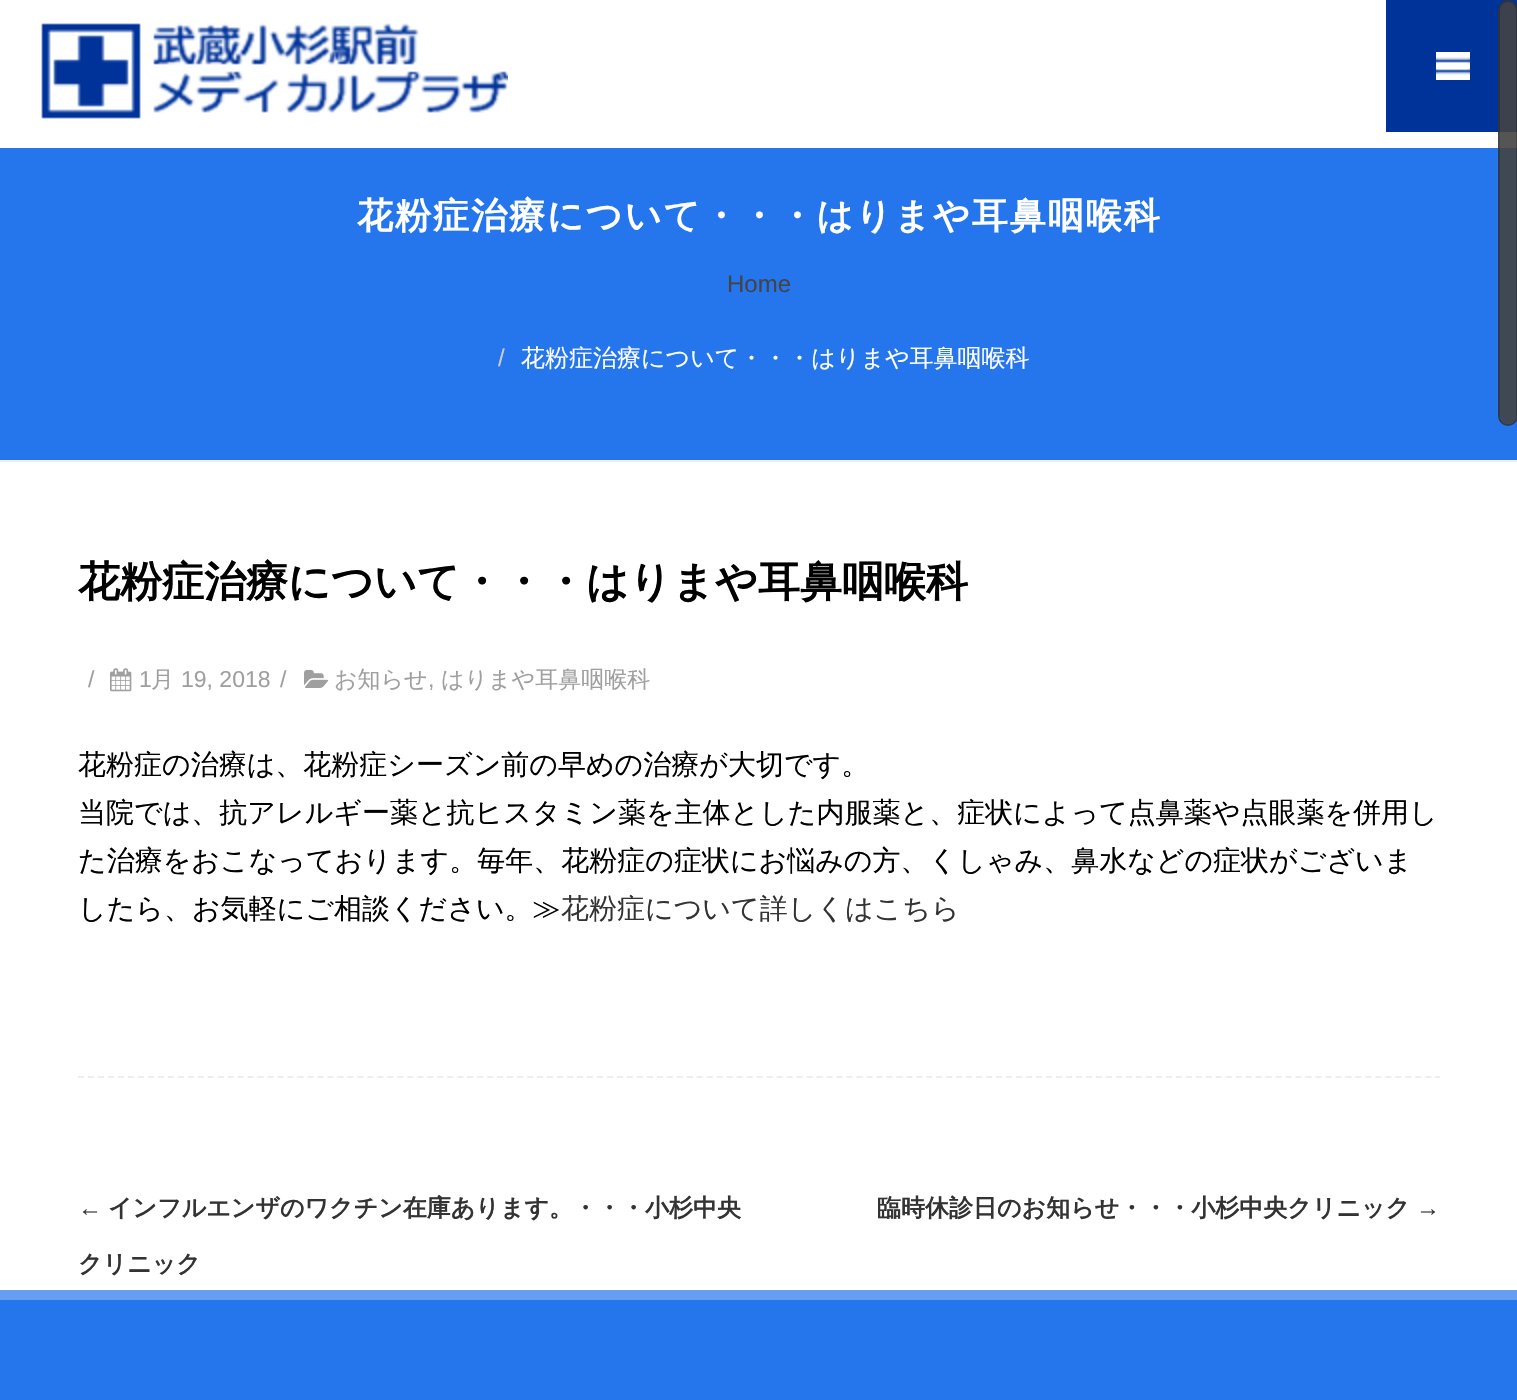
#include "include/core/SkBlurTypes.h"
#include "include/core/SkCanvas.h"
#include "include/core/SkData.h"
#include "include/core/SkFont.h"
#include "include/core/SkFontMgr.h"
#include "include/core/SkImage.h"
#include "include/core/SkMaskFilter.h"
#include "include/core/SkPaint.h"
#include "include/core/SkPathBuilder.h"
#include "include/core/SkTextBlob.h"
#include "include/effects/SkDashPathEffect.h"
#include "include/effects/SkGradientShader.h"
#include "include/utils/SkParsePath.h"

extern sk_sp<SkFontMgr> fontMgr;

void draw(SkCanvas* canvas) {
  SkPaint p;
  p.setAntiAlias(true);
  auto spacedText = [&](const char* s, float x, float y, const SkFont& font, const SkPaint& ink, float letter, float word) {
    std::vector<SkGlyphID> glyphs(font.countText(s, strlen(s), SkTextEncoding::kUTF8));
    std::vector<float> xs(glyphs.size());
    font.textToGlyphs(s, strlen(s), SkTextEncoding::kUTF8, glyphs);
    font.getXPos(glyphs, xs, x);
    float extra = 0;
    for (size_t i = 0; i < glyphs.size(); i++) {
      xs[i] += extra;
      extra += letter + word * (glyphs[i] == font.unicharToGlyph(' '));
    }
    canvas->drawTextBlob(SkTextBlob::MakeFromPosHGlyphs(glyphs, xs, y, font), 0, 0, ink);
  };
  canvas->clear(SK_ColorWHITE);
  canvas->drawImageRect(SkImages::DeferredFromEncodedData(SkData::MakeFromFileName("images/1.png")), SkRect::MakeLTRB(41, 23, 508, 119), SkSamplingOptions());
  p.setColor(SkColorSetRGB(0, 51, 153));
  canvas->drawRect(SkRect::MakeLTRB(1386, 0, 1517, 132), p);
  canvas->drawImageRect(SkImages::DeferredFromEncodedData(SkData::MakeFromFileName("images/2.png")), SkRect::MakeLTRB(1436, 52, 1470, 80), SkSamplingOptions());
  p.setColor(SkColorSetRGB(37, 117, 237));
  canvas->drawRect(SkRect::MakeLTRB(0, 148, 1517, 460), p);
  p.setColor(SkColorSetRGB(238, 238, 238));
  canvas->drawRect(SkRect::MakeLTRB(0, 460, 1517, 462), p);
  canvas->drawImageRect(SkImages::DeferredFromEncodedData(SkData::MakeFromFileName("images/3.png")), SkRect::MakeLTRB(110, 668, 132, 692), SkSamplingOptions());
  canvas->drawImageRect(SkImages::DeferredFromEncodedData(SkData::MakeFromFileName("images/4.png")), SkRect::MakeLTRB(304, 669, 329, 688), SkSamplingOptions());
  p.setStyle(SkPaint::kStroke_Style);
  p.setStrokeWidth(2);
  p.setPathEffect(SkDashPathEffect::Make({{6, 3.98f}}, 0));
  canvas->drawPath(SkPathBuilder().moveTo(78, 1077).lineTo(1440, 1077).detach(), p);
  p.setPathEffect(nullptr);
  p.setStyle(SkPaint::kFill_Style);
  p.setColor(SkColorSetRGB(37, 117, 237));
  canvas->drawRect(SkRect::MakeLTRB(0, 1300, 1517, 1400), p);
  p.setColor(SkColorSetRGB(102, 158, 242));
  canvas->drawRect(SkRect::MakeLTRB(0, 1290, 1517, 1300), p);
  p.setColor(SkColorSetARGB(230, 66, 66, 66));
  canvas->drawRoundRect(SkRect::MakeLTRB(1500, 2, 1516, 424), 8, 8, p);
  p.setStyle(SkPaint::kStroke_Style);
  p.setColor(SkColorSetARGB(230, 51, 51, 51));
  canvas->drawRoundRect(SkRect::MakeLTRB(1499, 1, 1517, 425), 9, 9, p);
  SkFont font1(fontMgr->matchFamilyStyle("WenQuanYi Zen Hei", SkFontStyle::Bold()), 36);
  font1.setSubpixel(true);
  p.setStyle(SkPaint::kFill_Style);
  p.setColor(SK_ColorWHITE);
  spacedText("花粉症治療について・・・はりまや耳鼻咽喉科", 357, 228, font1, p, 2, 0);
  SkFont font2(fontMgr->matchFamilyStyle("Liberation Sans", SkFontStyle::Normal()), 24);
  font2.setSubpixel(true);
  p.setColor(SkColorSetRGB(68, 68, 68));
  canvas->drawString("Home", 727, 292, font2, p);
  p.setColor(SkColorSetRGB(204, 204, 204));
  canvas->drawString("/", 498, 366, font2, p);
  SkFont font3(fontMgr->matchFamilyStyle("WenQuanYi Zen Hei", SkFontStyle(500, SkFontStyle::kNormal_Width, SkFontStyle::kUpright_Slant)), 24);
  font3.setSubpixel(true);
  p.setColor(SK_ColorWHITE);
  canvas->drawString("花粉症治療について・・・はりまや耳鼻咽喉科", 521, 366, font3, p);
  SkFont font4(fontMgr->matchFamilyStyle("WenQuanYi Zen Hei", SkFontStyle::Bold()), 42);
  font4.setSubpixel(true);
  p.setColor(SK_ColorBLACK);
  canvas->drawString("花粉症治療について・・・はりまや耳鼻咽喉科", 78, 596, font4, p);
  SkFont font5(fontMgr->matchFamilyStyle("Liberation Sans", SkFontStyle::Normal()), 23);
  font5.setSubpixel(true);
  p.setColor(SkColorSetRGB(159, 159, 159));
  canvas->drawString("/", 88, 687, font5, p);
  canvas->drawString("1", 139, 687, font5, p);
  SkFont font6(fontMgr->matchFamilyStyle("WenQuanYi Zen Hei", SkFontStyle(500, SkFontStyle::kNormal_Width, SkFontStyle::kUpright_Slant)), 23);
  font6.setSubpixel(true);
  canvas->drawString("月", 151, 687, font6, p);
  canvas->drawString("19, 2018", 181, 687, font5, p);
  canvas->drawString("/", 280, 687, font5, p);
  canvas->drawString("お知らせ", 334, 687, font6, p);
  canvas->drawString(",", 428, 687, font5, p);
  canvas->drawString("はりまや耳鼻咽喉科", 441, 687, font6, p);
  SkFont font7(fontMgr->matchFamilyStyle("WenQuanYi Zen Hei", SkFontStyle(500, SkFontStyle::kNormal_Width, SkFontStyle::kUpright_Slant)), 28);
  font7.setSubpixel(true);
  p.setColor(SK_ColorBLACK);
  canvas->drawString("花粉症の治療は、花粉症シーズン前の早めの治療が大切です。", 78, 774, font7, p);
  canvas->drawString("当院では、抗アレルギー薬と抗ヒスタミン薬を主体とした内服薬と、症状によって点鼻薬や点眼薬を併用し", 78, 822, font7, p);
  canvas->drawString("た治療をおこなっております。毎年、花粉症の症状にお悩みの方、くしゃみ、鼻水などの症状がございま", 78, 870, font7, p);
  canvas->drawString("したら、お気軽にご相談ください。≫", 78, 918, font7, p);
  p.setColor(SkColorSetRGB(51, 51, 51));
  canvas->drawString("花粉症について詳しくはこちら", 561, 918, font7, p);
  SkFont font8(fontMgr->matchFamilyStyle("Liberation Sans", SkFontStyle::Bold()), 24);
  font8.setSubpixel(true);
  canvas->drawString("←", 78, 1216, font8, p);
  SkFont font9(fontMgr->matchFamilyStyle("WenQuanYi Zen Hei", SkFontStyle::Bold()), 24);
  font9.setSubpixel(true);
  canvas->drawString("インフルエンザのワクチン在庫あります。・・・小杉中央", 108, 1216, font9, p);
  canvas->drawString("クリニック", 78, 1272, font9, p);
  canvas->drawString("臨時休診日のお知らせ・・・小杉中央クリニック", 877, 1216, font9, p);
  canvas->drawString("→", 1416, 1216, font8, p);
}
